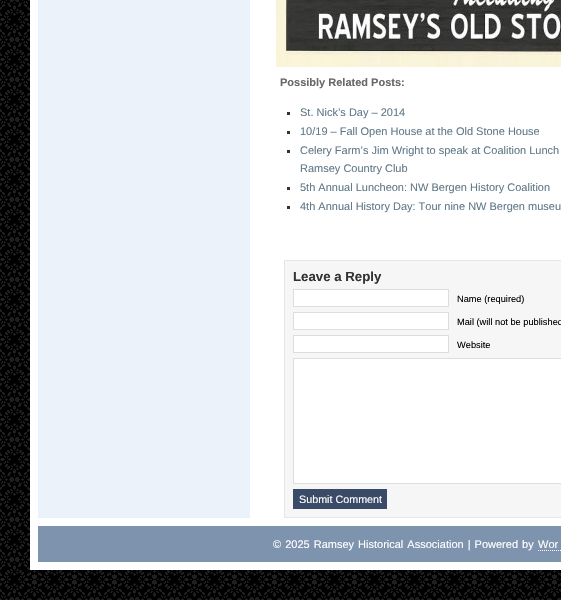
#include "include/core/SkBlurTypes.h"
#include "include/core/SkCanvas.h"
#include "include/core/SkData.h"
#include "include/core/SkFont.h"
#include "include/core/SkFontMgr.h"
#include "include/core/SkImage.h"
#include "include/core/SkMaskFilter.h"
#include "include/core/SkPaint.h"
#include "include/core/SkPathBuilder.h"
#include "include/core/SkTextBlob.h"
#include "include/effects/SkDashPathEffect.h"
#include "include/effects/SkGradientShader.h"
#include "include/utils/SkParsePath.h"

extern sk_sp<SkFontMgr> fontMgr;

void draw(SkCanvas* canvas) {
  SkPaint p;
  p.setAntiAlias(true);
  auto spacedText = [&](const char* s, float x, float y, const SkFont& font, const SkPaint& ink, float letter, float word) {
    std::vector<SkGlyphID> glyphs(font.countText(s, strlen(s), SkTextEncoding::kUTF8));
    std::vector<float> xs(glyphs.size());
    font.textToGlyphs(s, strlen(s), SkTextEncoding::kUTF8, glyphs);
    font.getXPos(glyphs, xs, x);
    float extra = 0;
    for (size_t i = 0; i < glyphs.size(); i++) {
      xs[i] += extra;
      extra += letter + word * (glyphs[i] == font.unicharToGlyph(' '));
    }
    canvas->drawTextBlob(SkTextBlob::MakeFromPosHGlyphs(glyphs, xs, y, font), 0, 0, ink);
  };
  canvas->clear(SK_ColorWHITE);
  canvas->drawImageRect(SkImages::DeferredFromEncodedData(SkData::MakeFromFileName("images/1.png")), SkRect::MakeLTRB(0, 0, 561, 600), SkSamplingOptions());
  p.setColor(SK_ColorWHITE);
  canvas->drawRect(SkRect::MakeLTRB(250, 0, 561, 518), p);
  p.setColor(SkColorSetRGB(235, 242, 250));
  canvas->drawRect(SkRect::MakeLTRB(38, 0, 250, 518), p);
  p.setStyle(SkPaint::kStroke_Style);
  p.setStrokeWidth(8);
  p.setColor(SK_ColorWHITE);
  canvas->drawRect(SkRect::MakeLTRB(34, -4, 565, 566), p);
  canvas->drawImageRect(SkImages::DeferredFromEncodedData(SkData::MakeFromFileName("images/2.png")), SkRect::MakeLTRB(276, 0, 561, 67), SkSamplingOptions());
  p.setStyle(SkPaint::kFill_Style);
  p.setColor(SkColorSetRGB(51, 51, 51));
  canvas->drawRect(SkRect::MakeLTRB(287, 112, 290, 115), p);
  canvas->drawRect(SkRect::MakeLTRB(287, 131, 290, 134), p);
  canvas->drawRect(SkRect::MakeLTRB(287, 150, 290, 153), p);
  canvas->drawRect(SkRect::MakeLTRB(287, 187, 290, 190), p);
  canvas->drawRect(SkRect::MakeLTRB(287, 206, 290, 209), p);
  p.setColor(SkColorSetRGB(246, 246, 246));
  canvas->drawRect(SkRect::MakeLTRB(284.5f, 260.5f, 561.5f, 517.5f), p);
  p.setStyle(SkPaint::kStroke_Style);
  p.setStrokeWidth(1);
  p.setColor(SkColorSetRGB(229, 229, 229));
  canvas->drawRect(SkRect::MakeLTRB(284.5f, 260.5f, 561.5f, 517.5f), p);
  p.setStyle(SkPaint::kFill_Style);
  p.setColor(SK_ColorWHITE);
  canvas->drawRect(SkRect::MakeLTRB(293.5f, 289.5f, 448.5f, 306.5f), p);
  p.setStyle(SkPaint::kStroke_Style);
  p.setColor(SkColorSetRGB(221, 221, 221));
  canvas->drawRect(SkRect::MakeLTRB(293.5f, 289.5f, 448.5f, 306.5f), p);
  p.setStyle(SkPaint::kFill_Style);
  p.setColor(SK_ColorWHITE);
  canvas->drawRect(SkRect::MakeLTRB(293.5f, 312.5f, 448.5f, 329.5f), p);
  p.setStyle(SkPaint::kStroke_Style);
  p.setColor(SkColorSetRGB(221, 221, 221));
  canvas->drawRect(SkRect::MakeLTRB(293.5f, 312.5f, 448.5f, 329.5f), p);
  p.setStyle(SkPaint::kFill_Style);
  p.setColor(SK_ColorWHITE);
  canvas->drawRect(SkRect::MakeLTRB(293.5f, 335.5f, 448.5f, 352.5f), p);
  p.setStyle(SkPaint::kStroke_Style);
  p.setColor(SkColorSetRGB(221, 221, 221));
  canvas->drawRect(SkRect::MakeLTRB(293.5f, 335.5f, 448.5f, 352.5f), p);
  p.setStyle(SkPaint::kFill_Style);
  p.setColor(SK_ColorWHITE);
  canvas->drawRect(SkRect::MakeLTRB(293.5f, 358.5f, 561.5f, 483.5f), p);
  p.setStyle(SkPaint::kStroke_Style);
  p.setColor(SkColorSetRGB(221, 221, 221));
  canvas->drawRect(SkRect::MakeLTRB(293.5f, 358.5f, 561.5f, 483.5f), p);
  p.setStyle(SkPaint::kFill_Style);
  p.setColor(SkColorSetRGB(58, 75, 104));
  canvas->drawRect(SkRect::MakeLTRB(293, 489, 387, 509), p);
  p.setColor(SkColorSetRGB(126, 147, 173));
  canvas->drawRect(SkRect::MakeLTRB(38, 526, 561, 562), p);
  p.setColor(SK_ColorWHITE);
  canvas->drawRect(SkRect::MakeLTRB(38, 518, 561, 526), p);
  p.setStyle(SkPaint::kStroke_Style);
  p.setPathEffect(SkDashPathEffect::Make({{1, 1}}, 0));
  canvas->drawPath(SkPathBuilder().moveTo(538, 550.5f).lineTo(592, 550.5f).detach(), p);
  p.setPathEffect(nullptr);
  SkFont font1(fontMgr->matchFamilyStyle("Liberation Sans", SkFontStyle::Bold()), 11);
  font1.setSubpixel(true);
  p.setStyle(SkPaint::kFill_Style);
  p.setColor(SkColorSetRGB(103, 103, 103));
  canvas->drawString("Possibly Related Posts:", 280, 86, font1, p);
  SkFont font2(fontMgr->matchFamilyStyle("Liberation Sans", SkFontStyle::Normal()), 11);
  font2.setSubpixel(true);
  p.setColor(SkColorSetRGB(97, 121, 136));
  canvas->drawString("St. Nick’s Day – 2014", 300, 116, font2, p);
  canvas->drawString("10/19 – Fall Open House at the Old Stone House", 300, 135, font2, p);
  canvas->drawString("Celery Farm’s Jim Wright to speak at Coalition Lunch", 300, 154, font2, p);
  canvas->drawString("Ramsey Country Club", 300, 172, font2, p);
  canvas->drawString("5th Annual Luncheon: NW Bergen History Coalition", 300, 191, font2, p);
  canvas->drawString("4th Annual History Day: Tour nine NW Bergen museu", 300, 210, font2, p);
  SkFont font3(fontMgr->matchFamilyStyle("Liberation Sans", SkFontStyle::Bold()), 13.25f);
  font3.setSubpixel(true);
  p.setColor(SkColorSetRGB(51, 51, 51));
  canvas->drawString("Leave a Reply", 293, 281, font3, p);
  SkFont font4(fontMgr->matchFamilyStyle("Liberation Sans", SkFontStyle::Normal()), 9.25f);
  font4.setSubpixel(true);
  p.setColor(SK_ColorBLACK);
  canvas->drawString("Name (required)", 457, 302, font4, p);
  canvas->drawString("Mail (will not be published", 457, 325, font4, p);
  canvas->drawString("Website", 457, 348, font4, p);
  SkFont font5(fontMgr->matchFamilyStyle("Liberation Sans", SkFontStyle::Normal()), 10.75f);
  font5.setSubpixel(true);
  p.setColor(SK_ColorWHITE);
  canvas->drawString("Submit Comment", 299, 503, font5, p);
  spacedText("© 2025 Ramsey Historical Association | Powered by", 273, 548, font2, p, 0, 1);
  canvas->drawString("Wor", 538, 548, font2, p);
}
